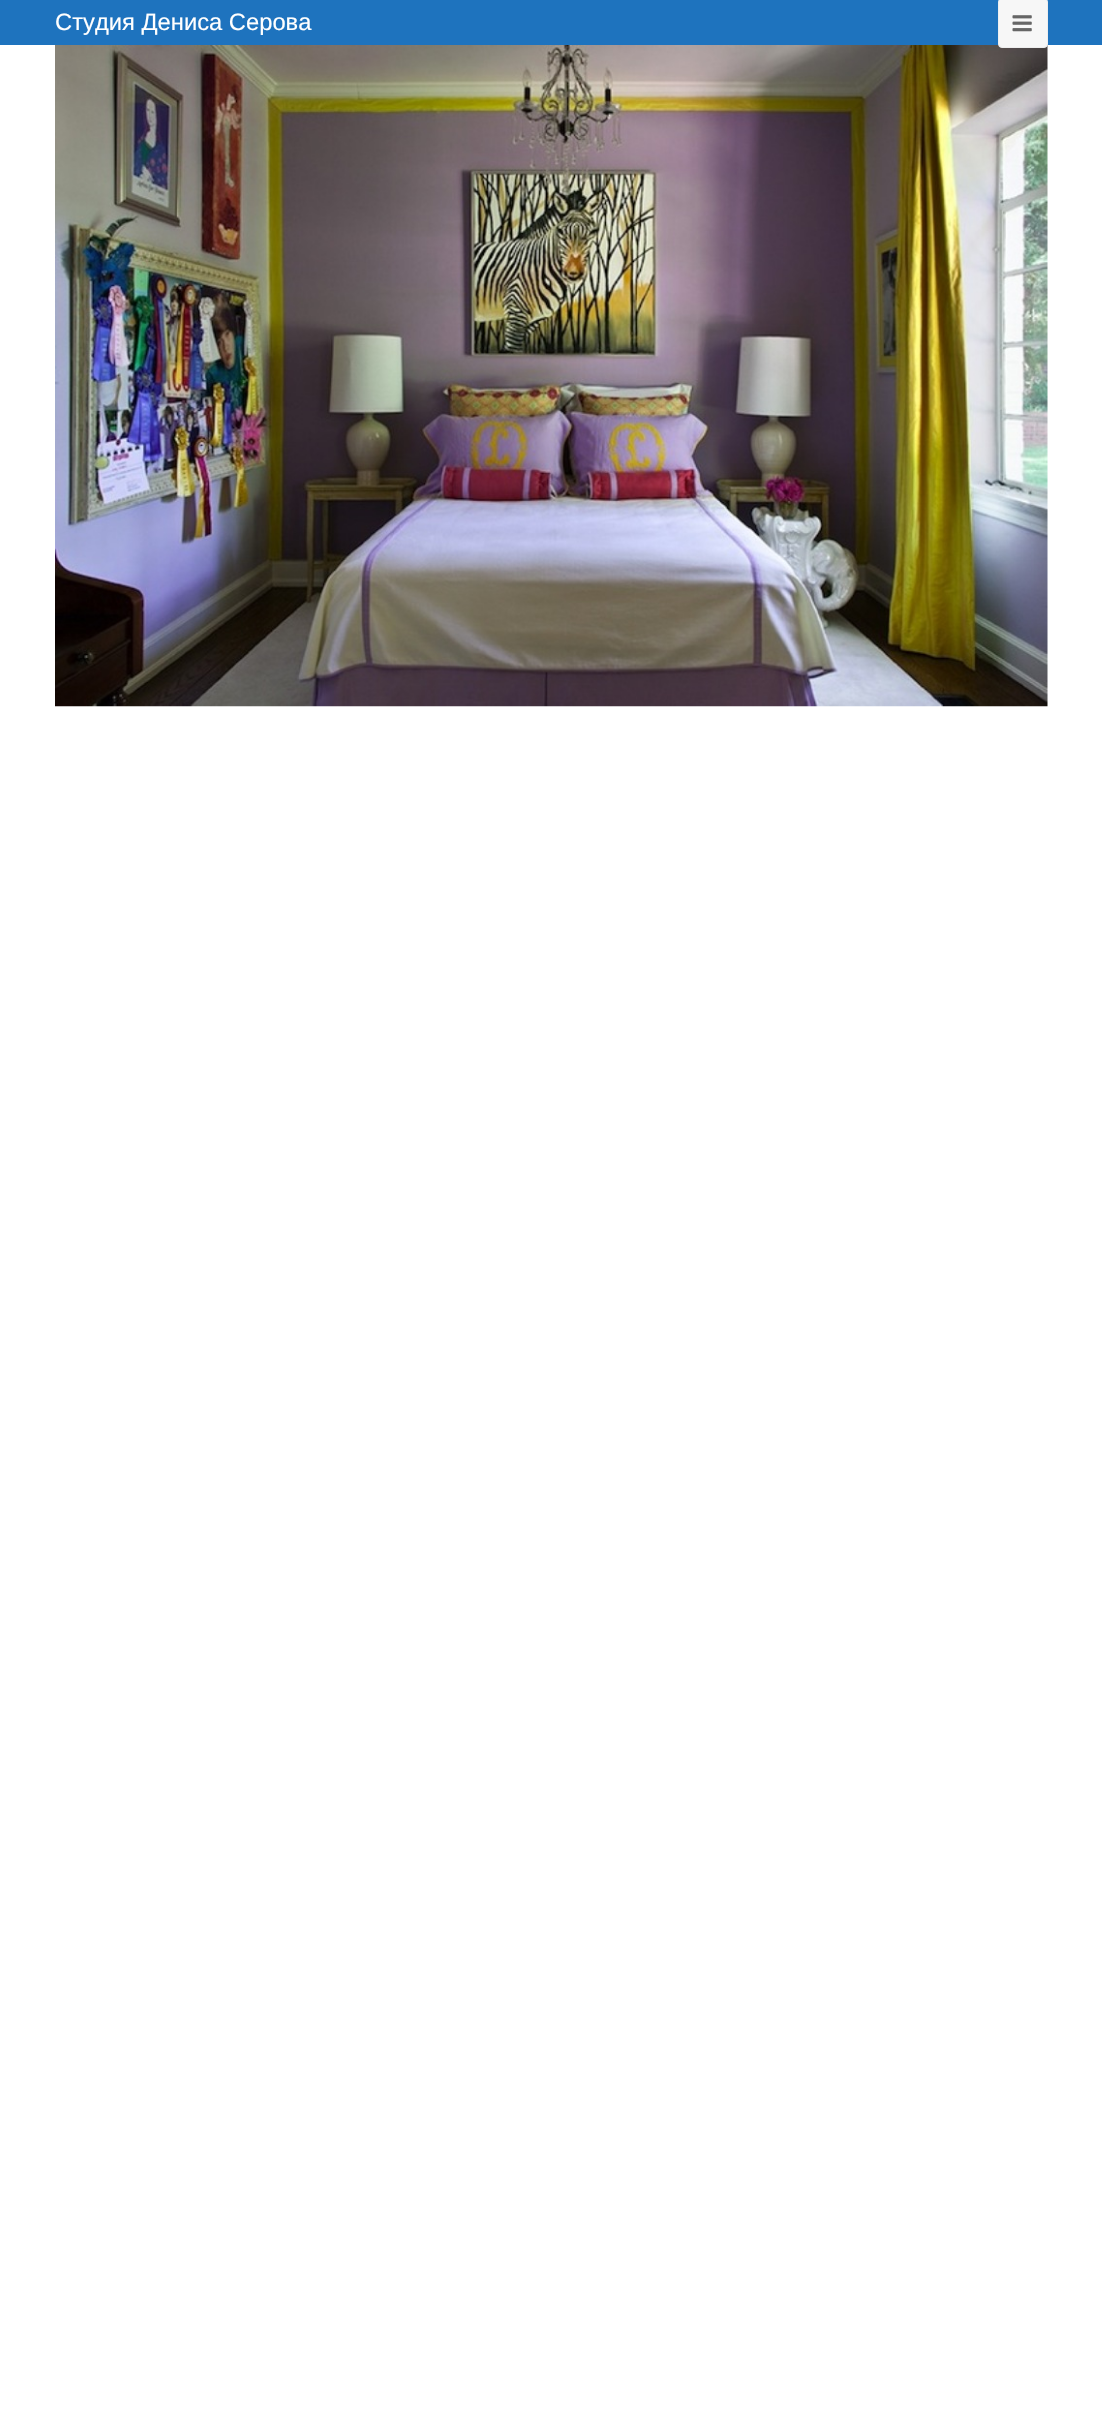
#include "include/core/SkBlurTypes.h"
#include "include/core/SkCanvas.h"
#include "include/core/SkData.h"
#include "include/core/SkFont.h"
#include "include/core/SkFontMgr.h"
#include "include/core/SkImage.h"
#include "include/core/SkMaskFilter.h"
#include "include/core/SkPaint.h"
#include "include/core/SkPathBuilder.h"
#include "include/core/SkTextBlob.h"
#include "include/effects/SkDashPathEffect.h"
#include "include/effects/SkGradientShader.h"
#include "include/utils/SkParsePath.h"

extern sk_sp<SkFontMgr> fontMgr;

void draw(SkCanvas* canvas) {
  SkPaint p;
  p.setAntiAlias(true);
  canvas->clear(SK_ColorWHITE);
  p.setColor(SkColorSetRGB(30, 115, 190));
  canvas->drawRect(SkRect::MakeLTRB(0, 0, 1102, 45), p);
  canvas->drawImageRect(SkImages::DeferredFromEncodedData(SkData::MakeFromFileName("images/2.png")), SkRect::MakeLTRB(55, 45, 1048, 707), SkSamplingOptions());
  p.setColor(SkColorSetRGB(247, 247, 247));
  canvas->drawRoundRect(SkRect::MakeLTRB(998.5f, -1.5f, 1047.5f, 47.5f), 3.5f, 3.5f, p);
  p.setStyle(SkPaint::kStroke_Style);
  p.setStrokeWidth(1);
  p.setColor(SkColorSetRGB(238, 238, 238));
  canvas->drawRoundRect(SkRect::MakeLTRB(998.5f, -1.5f, 1047.5f, 47.5f), 3.5f, 3.5f, p);
  canvas->drawImageRect(SkImages::DeferredFromEncodedData(SkData::MakeFromFileName("images/1.png")), SkRect::MakeLTRB(1012, 15, 1032, 32), SkSamplingOptions());
  SkFont font1(fontMgr->matchFamilyStyle("Liberation Sans", SkFontStyle::Normal()), 23.75f);
  font1.setSubpixel(true);
  p.setStyle(SkPaint::kFill_Style);
  p.setColor(SK_ColorWHITE);
  canvas->drawString("Студия Дениса Серова", 55, 30, font1, p);
}
